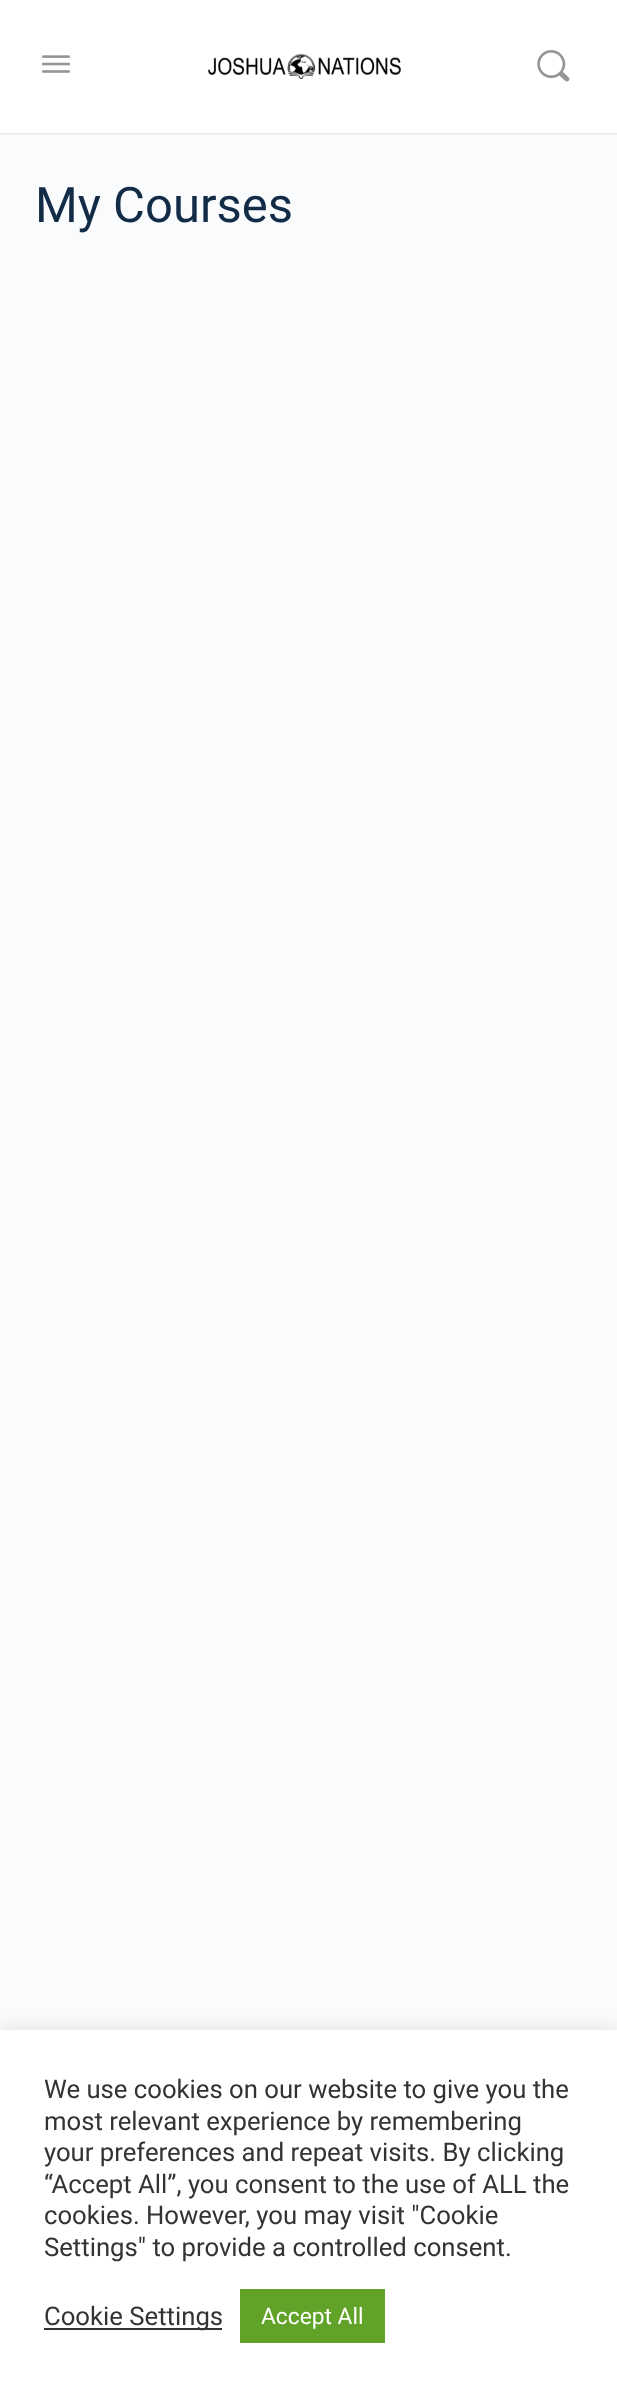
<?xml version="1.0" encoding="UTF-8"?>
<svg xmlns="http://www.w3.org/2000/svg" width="617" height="2395">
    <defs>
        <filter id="blur1" x="-50%" y="-200%" width="200%" height="500%"><feGaussianBlur stdDeviation="1"/></filter>
        <filter id="blur2" x="-50%" y="-200%" width="200%" height="500%"><feGaussianBlur stdDeviation="9"/></filter>
    </defs>
    <rect width="100%" height="100%" fill="#FAFBFD"/>
    <rect x="0" y="0" width="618" height="133" fill="#41476C" fill-opacity="0.15" filter="url(#blur1)"/>
    <path d="M 0 133 V 135 H 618 V 2 V 133 Z" fill="#8B8D9D" fill-opacity="0.05"/>
    <rect x="0" y="0" width="617" height="133" fill="#FFFFFF"/>
    <image x="42" y="55" width="28" height="18" href="img_01.png"/>
    <image x="208" y="54" width="193" height="25" href="img_02.png"/>
    <image x="537" y="50" width="33" height="32" href="img_03.png"/>
    <text x="35" y="222" font-family="Roboto" font-size="49" fill="#122B46">My Courses</text>
    <rect x="0" y="2028" width="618" height="366" fill="#ACABAB" fill-opacity="0.3" filter="url(#blur2)"/>
    <rect x="0" y="2030" width="617" height="365" fill="#FFFFFF"/>
    <text font-family="Roboto" font-size="25.7" fill="#333333">
        <tspan x="44" y="2098">We use cookies on our website to give you the</tspan>
        <tspan x="44" y="2130">most relevant experience by remembering</tspan>
        <tspan x="44" y="2161">your preferences and repeat visits. By clicking</tspan>
        <tspan x="44" y="2193">“Accept All”, you consent to the use of ALL the</tspan>
        <tspan x="44" y="2224">cookies. However, you may visit "Cookie</tspan>
        <tspan x="44" y="2256">Settings" to provide a controlled consent.</tspan>
    </text>
    <rect x="44" y="2328" width="178" height="2" fill="#333333"/>
    <text x="44" y="2325" font-family="Roboto" font-size="25.7" fill="#333333">Cookie Settings</text>
    <rect x="240" y="2289" width="145" height="54" fill="#61A229"/>
    <text x="261" y="2324" font-family="Roboto" font-size="22.75" fill="#FFFFFF">Accept All</text>
</svg>
